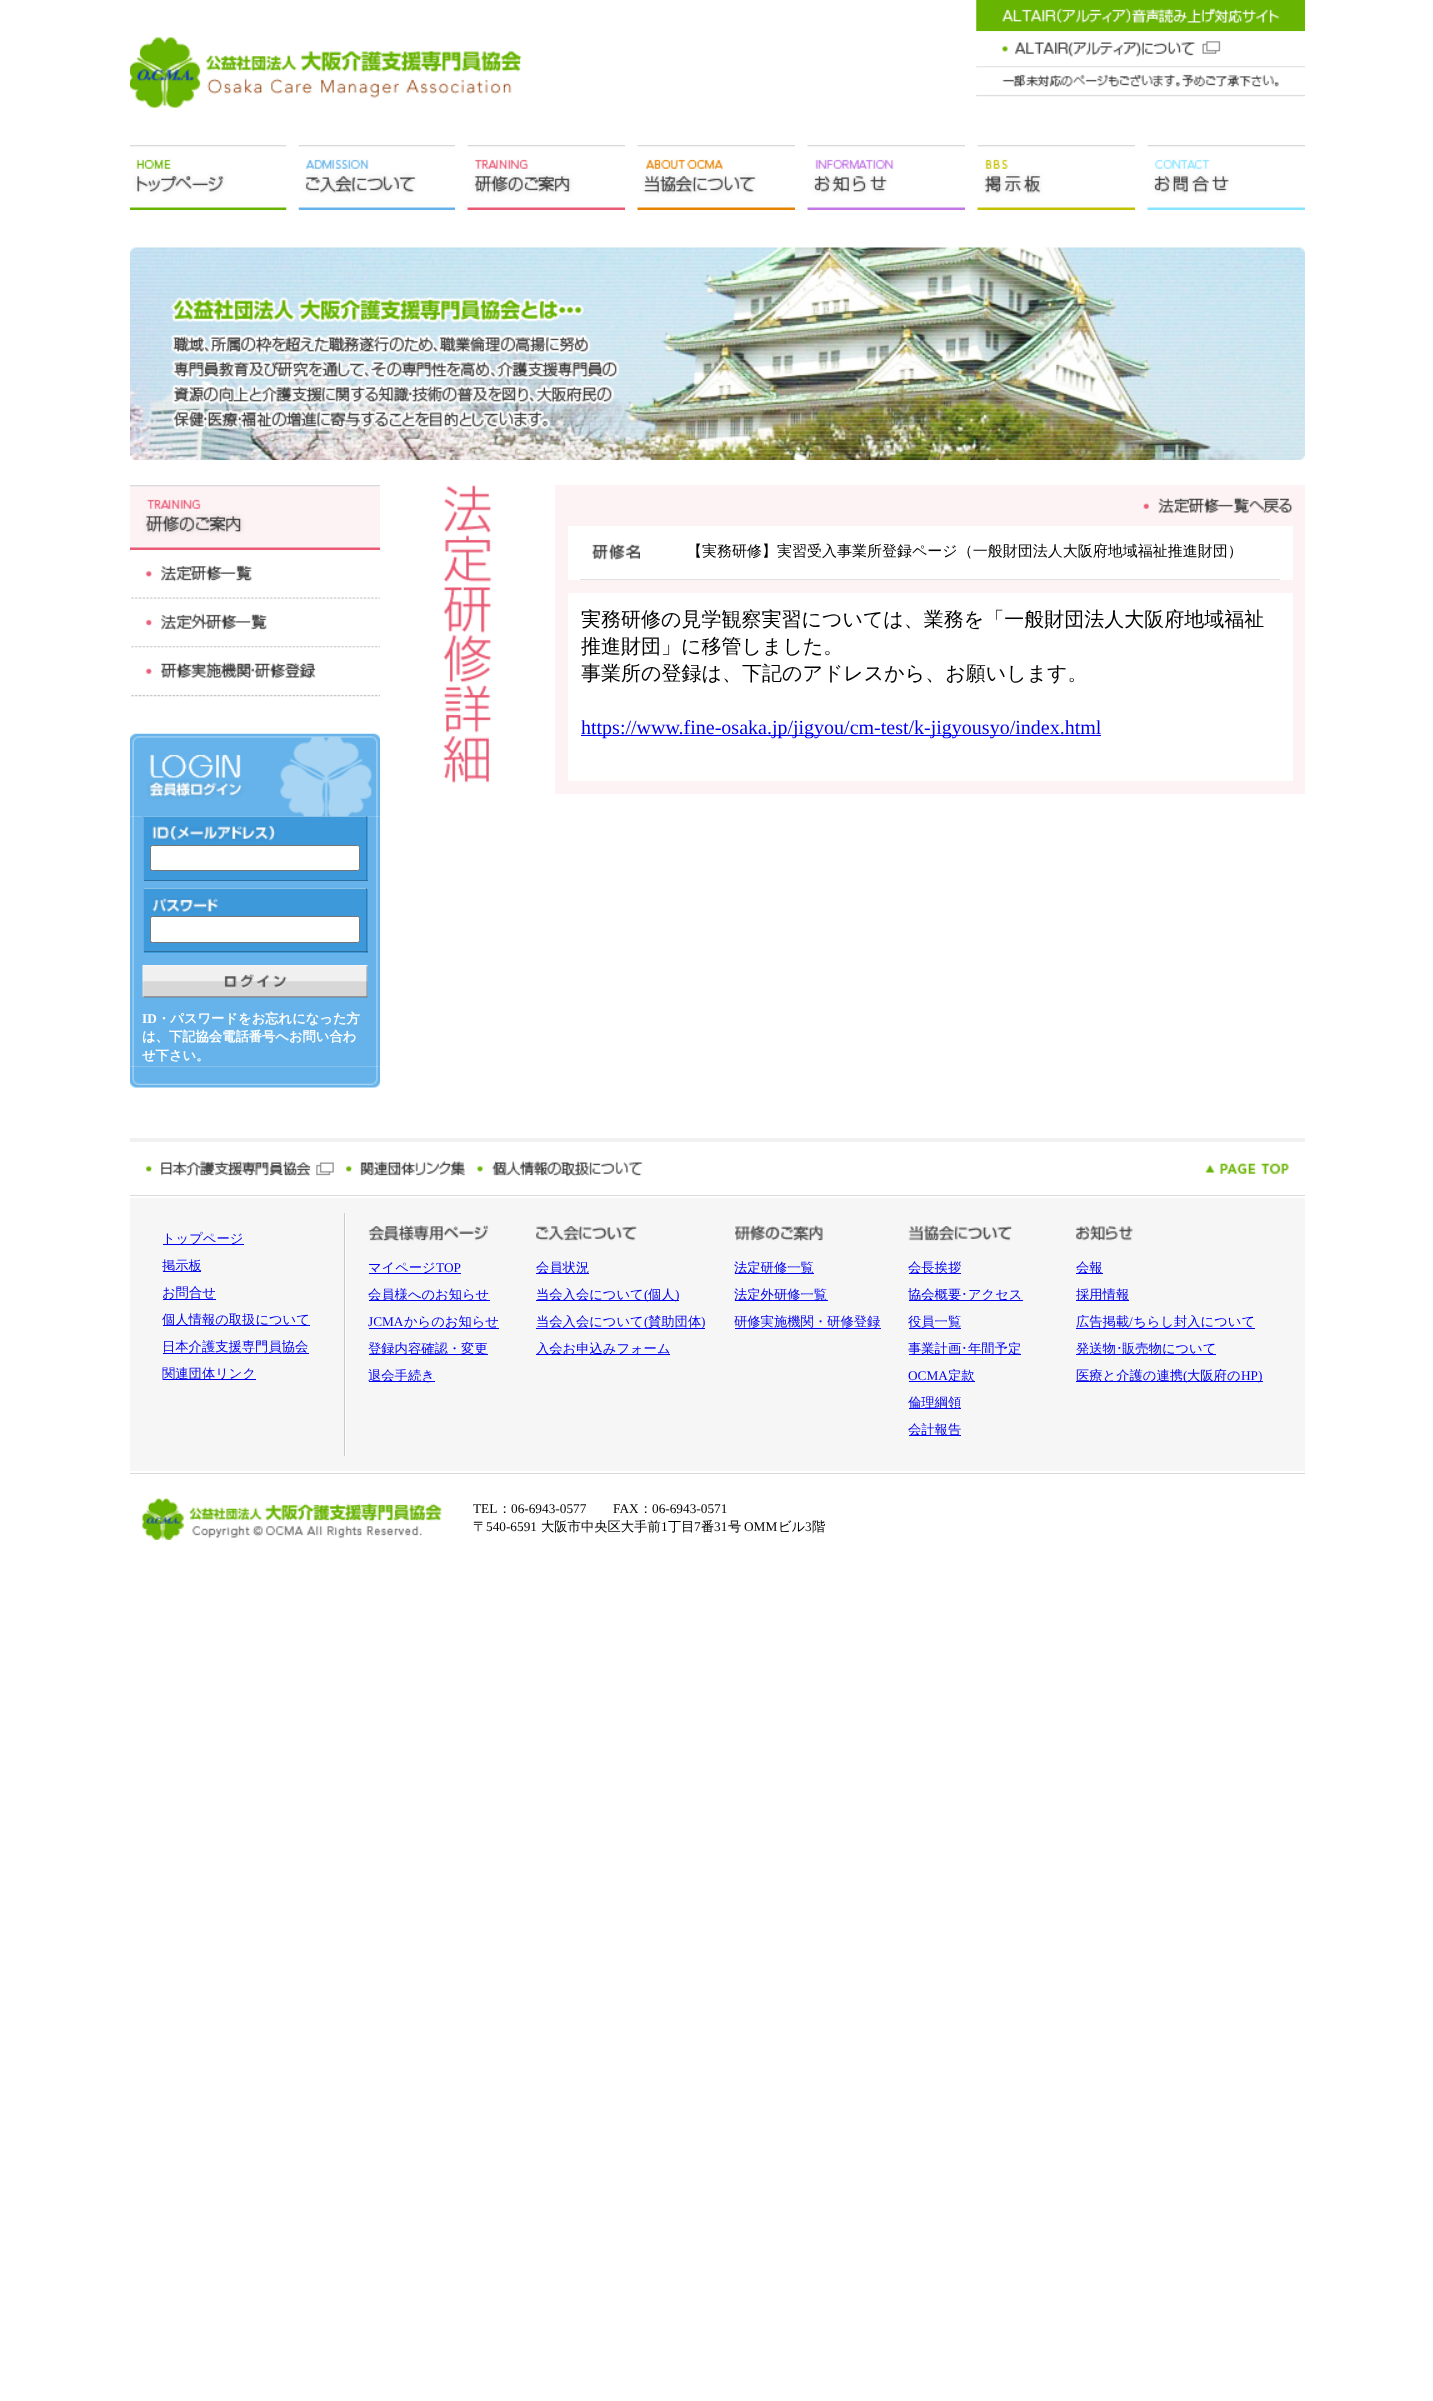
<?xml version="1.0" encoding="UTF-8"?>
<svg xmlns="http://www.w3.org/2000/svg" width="1433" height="2401">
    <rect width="100%" height="100%" fill="#FFFFFF"/>
    <image x="130" y="37" width="392" height="71" href="img_01.png"/>
    <image x="976" y="0" width="329" height="32" href="img_02.png"/>
    <image x="976" y="31" width="329" height="37" href="img_03.png"/>
    <image x="976" y="67" width="329" height="30" href="img_04.png"/>
    <image x="130" y="145" width="157" height="65" href="img_05.png"/>
    <image x="298" y="145" width="157" height="65" href="img_06.png"/>
    <image x="467" y="145" width="158" height="65" href="img_07.png"/>
    <image x="637" y="145" width="158" height="65" href="img_08.png"/>
    <image x="807" y="145" width="158" height="65" href="img_09.png"/>
    <image x="977" y="145" width="158" height="65" href="img_10.png"/>
    <image x="1147" y="145" width="158" height="65" href="img_11.png"/>
    <image x="130" y="247" width="1175" height="213" href="img_12.png"/>
    <image x="443" y="485" width="49" height="298" href="img_13.png"/>
    <rect x="555" y="485" width="750" height="309" fill="#FDF3F5"/>
    <image x="1143" y="497" width="150" height="17" href="img_14.png"/>
    <rect x="568" y="526" width="725" height="54" fill="#FFFFFF"/>
    <rect x="580" y="579" width="700" height="1" fill="#E1E1E1"/>
    <image x="592" y="543" width="48" height="17" href="img_15.png"/>
    <text x="687" y="556" font-family="WenQuanYi Zen Hei" font-size="15" font-weight="500" fill="#000000">【実務研修】実習受入事業所登録ページ（一般財団法人大阪府地域福祉推進財団）</text>
    <rect x="568" y="593" width="725" height="188" fill="#FFFFFF"/>
    <text font-family="WenQuanYi Zen Hei" font-size="20" font-weight="500" fill="#000000">
        <tspan x="581" y="626">実務研修の見学観察実習については、業務を「一般財団法人大阪府地域福祉</tspan>
        <tspan x="581" y="653">推進財団」に移管しました。</tspan>
        <tspan x="581" y="680">事業所の登録は、下記のアドレスから、お願いします。</tspan>
    </text>
    <rect x="581" y="735" width="520" height="1" fill="#0000EE"/>
    <text x="581" y="734" font-family="Liberation Serif" font-size="20" fill="#0000EE">https://www.fine-osaka.jp/jigyou/cm-test/k-jigyousyo/index.html</text>
    <image x="130" y="485" width="250" height="65" href="img_16.png"/>
    <image x="131" y="565" width="249" height="34" href="img_17.png"/>
    <image x="131" y="598" width="249" height="50" href="img_18.png"/>
    <image x="131" y="647" width="249" height="50" href="img_19.png"/>
    <image x="130" y="816" width="250" height="251" href="img_21.png"/>
    <rect x="143" y="816" width="225" height="1" fill="#8AC1E9"/>
    <rect x="144" y="817" width="224" height="63" fill="#3E99DA"/>
    <rect x="366" y="816" width="1" height="65" fill="#337EB4"/>
    <rect x="143" y="880" width="225" height="1" fill="#2D6E9D"/>
    <rect x="143" y="816" width="1" height="65" fill="#65ADE1"/>
    <image x="130" y="733" width="250" height="84" href="img_20.png"/>
    <image x="151" y="826" width="125" height="15" href="img_22.png"/>
    <rect x="150.5" y="845.5" width="209" height="25" rx="2" fill="#FFFFFF" stroke="#767676"/>
    <rect x="144" y="889" width="224" height="64" fill="#3E99DA"/>
    <rect x="143" y="888" width="225" height="1" fill="#8AC1E9"/>
    <rect x="366" y="888" width="1" height="65" fill="#337EB4"/>
    <rect x="143" y="951" width="225" height="1" fill="#2D6E9D"/>
    <rect x="143" y="888" width="1" height="65" fill="#65ADE1"/>
    <image x="152" y="898" width="66" height="15" href="img_23.png"/>
    <rect x="150.5" y="916.5" width="209" height="26" rx="2" fill="#FFFFFF" stroke="#767676"/>
    <image x="142" y="965" width="226" height="33" href="img_24.png"/>
    <text x="142" y="1023" font-family="Liberation Serif" font-size="13.3" font-weight="700" fill="#FFFFFF">ID</text>
    <text x="157" y="1023" font-family="WenQuanYi Zen Hei" font-size="13.3" font-weight="700" fill="#FFFFFF">・パスワードをお忘れになった方</text>
    <text font-family="WenQuanYi Zen Hei" font-size="13.3" font-weight="700" fill="#FFFFFF">
        <tspan x="142" y="1041">は、下記協会電話番号へお問い合わ</tspan>
        <tspan x="142" y="1060">せ下さい。</tspan>
    </text>
    <image x="130" y="1066" width="250" height="22" href="img_25.png"/>
    <rect x="130" y="1138" width="1175" height="4" fill="#F1F1F1"/>
    <rect x="130" y="1195" width="1175" height="1" fill="#DADADA"/>
    <image x="146" y="1161" width="188" height="16" href="img_26.png"/>
    <image x="346" y="1161" width="119" height="15" href="img_27.png"/>
    <image x="477" y="1161" width="166" height="16" href="img_28.png"/>
    <image x="1205" y="1163" width="84" height="11" href="img_29.png"/>
    <rect x="130" y="1198" width="1175" height="273" fill="#F6F6F6"/>
    <rect x="344" y="1213" width="1" height="243" fill="#CACACA"/>
    <rect x="163" y="1244" width="81" height="1" fill="#0000EE"/>
    <text x="162" y="1243" font-family="WenQuanYi Zen Hei" font-size="13.3" font-weight="500" fill="#0000EE">トップページ</text>
    <rect x="163" y="1271" width="38" height="1" fill="#0000EE"/>
    <text x="162" y="1270" font-family="WenQuanYi Zen Hei" font-size="13.3" font-weight="500" fill="#0000EE">掲示板</text>
    <text x="162" y="1297" font-family="WenQuanYi Zen Hei" font-size="13.3" font-weight="500" fill="#0000EE">お問合せ</text>
    <rect x="163" y="1299" width="53" height="1" fill="#0000EE"/>
    <rect x="163" y="1325" width="147" height="1" fill="#0000EE"/>
    <text x="162" y="1324" font-family="WenQuanYi Zen Hei" font-size="13.3" font-weight="500" fill="#0000EE">個人情報の取扱について</text>
    <rect x="163" y="1353" width="146" height="1" fill="#0000EE"/>
    <text x="162" y="1351" font-family="WenQuanYi Zen Hei" font-size="13.3" font-weight="500" fill="#0000EE">日本介護支援専門員協会</text>
    <rect x="163" y="1379" width="93" height="1" fill="#0000EE"/>
    <text x="162" y="1378" font-family="WenQuanYi Zen Hei" font-size="13.3" font-weight="500" fill="#0000EE">関連団体リンク</text>
    <rect x="345" y="1213" width="1" height="243" fill="#FFFFFF"/>
    <image x="368" y="1225" width="121" height="17" href="img_30.png"/>
    <rect x="369" y="1273" width="92" height="1" fill="#0000EE"/>
    <text x="368" y="1272" font-family="WenQuanYi Zen Hei" font-size="13.3" font-weight="500" fill="#0000EE">マイページ</text>
    <text x="436" y="1272" font-family="Liberation Serif" font-size="13.3" fill="#0000EE">TOP</text>
    <rect x="369" y="1300" width="121" height="1" fill="#0000EE"/>
    <text x="368" y="1299" font-family="WenQuanYi Zen Hei" font-size="13.3" font-weight="500" fill="#0000EE">会員様へのお知らせ</text>
    <text x="368" y="1326" font-family="Liberation Serif" font-size="13.3" fill="#0000EE">JCMA</text>
    <rect x="369" y="1328" width="130" height="1" fill="#0000EE"/>
    <text x="404" y="1326" font-family="WenQuanYi Zen Hei" font-size="13.3" font-weight="500" fill="#0000EE">からのお知らせ</text>
    <rect x="369" y="1354" width="119" height="1" fill="#0000EE"/>
    <text x="368" y="1353" font-family="WenQuanYi Zen Hei" font-size="13.3" font-weight="500" fill="#0000EE">登録内容確認・変更</text>
    <rect x="369" y="1381" width="66" height="1" fill="#0000EE"/>
    <text x="368" y="1380" font-family="WenQuanYi Zen Hei" font-size="13.3" font-weight="500" fill="#0000EE">退会手続き</text>
    <image x="536" y="1226" width="101" height="15" href="img_31.png"/>
    <rect x="536" y="1273" width="53" height="1" fill="#0000EE"/>
    <text x="536" y="1272" font-family="WenQuanYi Zen Hei" font-size="13.3" font-weight="500" fill="#0000EE">会員状況</text>
    <rect x="536" y="1300" width="143" height="1" fill="#0000EE"/>
    <text x="536" y="1299" font-family="WenQuanYi Zen Hei" font-size="13.3" font-weight="500" fill="#0000EE">当会入会について</text>
    <text x="644" y="1299" font-family="Liberation Serif" font-size="13.3" fill="#0000EE">(</text>
    <text x="648" y="1299" font-family="WenQuanYi Zen Hei" font-size="13.3" font-weight="500" fill="#0000EE">個人</text>
    <text x="675" y="1299" font-family="Liberation Serif" font-size="13.3" fill="#0000EE">)</text>
    <text x="536" y="1326" font-family="WenQuanYi Zen Hei" font-size="13.3" font-weight="500" fill="#0000EE">当会入会について</text>
    <rect x="536" y="1328" width="169" height="1" fill="#0000EE"/>
    <text x="644" y="1326" font-family="Liberation Serif" font-size="13.3" fill="#0000EE">(</text>
    <text x="648" y="1326" font-family="WenQuanYi Zen Hei" font-size="13.3" font-weight="500" fill="#0000EE">賛助団体</text>
    <text x="701" y="1326" font-family="Liberation Serif" font-size="13.3" fill="#0000EE">)</text>
    <rect x="536" y="1354" width="134" height="1" fill="#0000EE"/>
    <text x="536" y="1353" font-family="WenQuanYi Zen Hei" font-size="13.3" font-weight="500" fill="#0000EE">入会お申込みフォーム</text>
    <image x="735" y="1225" width="88" height="17" href="img_32.png"/>
    <rect x="735" y="1273" width="79" height="1" fill="#0000EE"/>
    <text x="734" y="1272" font-family="WenQuanYi Zen Hei" font-size="13.3" font-weight="500" fill="#0000EE">法定研修一覧</text>
    <rect x="735" y="1300" width="93" height="1" fill="#0000EE"/>
    <text x="734" y="1299" font-family="WenQuanYi Zen Hei" font-size="13.3" font-weight="500" fill="#0000EE">法定外研修一覧</text>
    <rect x="735" y="1328" width="146" height="1" fill="#0000EE"/>
    <text x="734" y="1326" font-family="WenQuanYi Zen Hei" font-size="13.3" font-weight="500" fill="#0000EE">研修実施機関・研修登録</text>
    <image x="908" y="1225" width="104" height="16" href="img_33.png"/>
    <rect x="909" y="1273" width="52" height="1" fill="#0000EE"/>
    <text x="908" y="1272" font-family="WenQuanYi Zen Hei" font-size="13.3" font-weight="500" fill="#0000EE">会長挨拶</text>
    <rect x="909" y="1300" width="114" height="1" fill="#0000EE"/>
    <text x="908" y="1299" font-family="WenQuanYi Zen Hei" font-size="13.3" font-weight="500" fill="#0000EE">協会概要</text>
    <text x="961" y="1299" font-family="IPAGothic" font-size="13.3" fill="#0000EE">･</text>
    <text x="968" y="1299" font-family="WenQuanYi Zen Hei" font-size="13.3" font-weight="500" fill="#0000EE">アクセス</text>
    <rect x="909" y="1328" width="52" height="1" fill="#0000EE"/>
    <text x="908" y="1326" font-family="WenQuanYi Zen Hei" font-size="13.3" font-weight="500" fill="#0000EE">役員一覧</text>
    <rect x="909" y="1354" width="112" height="1" fill="#0000EE"/>
    <text x="908" y="1353" font-family="WenQuanYi Zen Hei" font-size="13.3" font-weight="500" fill="#0000EE">事業計画</text>
    <text x="961" y="1353" font-family="IPAGothic" font-size="13.3" fill="#0000EE">･</text>
    <text x="968" y="1353" font-family="WenQuanYi Zen Hei" font-size="13.3" font-weight="500" fill="#0000EE">年間予定</text>
    <text x="908" y="1380" font-family="Liberation Serif" font-size="13.3" fill="#0000EE">OCMA</text>
    <rect x="909" y="1381" width="66" height="1" fill="#0000EE"/>
    <text x="948" y="1380" font-family="WenQuanYi Zen Hei" font-size="13.3" font-weight="500" fill="#0000EE">定款</text>
    <rect x="909" y="1408" width="52" height="1" fill="#0000EE"/>
    <text x="908" y="1407" font-family="WenQuanYi Zen Hei" font-size="13.3" font-weight="500" fill="#0000EE">倫理綱領</text>
    <rect x="909" y="1435" width="52" height="1" fill="#0000EE"/>
    <text x="908" y="1434" font-family="WenQuanYi Zen Hei" font-size="13.3" font-weight="500" fill="#0000EE">会計報告</text>
    <image x="1076" y="1225" width="57" height="16" href="img_34.png"/>
    <rect x="1076" y="1273" width="27" height="1" fill="#0000EE"/>
    <text x="1076" y="1272" font-family="WenQuanYi Zen Hei" font-size="13.3" font-weight="500" fill="#0000EE">会報</text>
    <rect x="1076" y="1300" width="53" height="1" fill="#0000EE"/>
    <text x="1076" y="1299" font-family="WenQuanYi Zen Hei" font-size="13.3" font-weight="500" fill="#0000EE">採用情報</text>
    <text x="1076" y="1326" font-family="WenQuanYi Zen Hei" font-size="13.3" font-weight="500" fill="#0000EE">広告掲載 ちらし封入について</text>
    <text x="1129" y="1326" font-family="Liberation Serif" font-size="13.3" fill="#0000EE">/</text>
    <rect x="1076" y="1328" width="179" height="1" fill="#0000EE"/>
    <rect x="1076" y="1354" width="140" height="1" fill="#0000EE"/>
    <text x="1076" y="1353" font-family="WenQuanYi Zen Hei" font-size="13.3" font-weight="500" fill="#0000EE">発送物</text>
    <text x="1116" y="1353" font-family="IPAGothic" font-size="13.3" fill="#0000EE">･</text>
    <text x="1122" y="1353" font-family="WenQuanYi Zen Hei" font-size="13.3" font-weight="500" fill="#0000EE">販売物について</text>
    <rect x="1076" y="1381" width="187" height="1" fill="#0000EE"/>
    <text x="1076" y="1380" font-family="WenQuanYi Zen Hei" font-size="13.3" font-weight="500" fill="#0000EE">医療と介護の連携</text>
    <text x="1183" y="1380" font-family="Liberation Serif" font-size="13.3" fill="#0000EE">(</text>
    <text x="1187" y="1380" font-family="WenQuanYi Zen Hei" font-size="13.3" font-weight="500" fill="#0000EE">大阪府の</text>
    <text x="1241" y="1380" font-family="Liberation Serif" font-size="13.3" fill="#0000EE">HP)</text>
    <rect x="130" y="1473" width="1175" height="1" fill="#DADADA"/>
    <image x="142" y="1498" width="300" height="42" href="img_35.png"/>
    <text x="473" y="1513" font-family="Liberation Serif" font-size="13.3" fill="#000000">TEL</text>
    <text x="498" y="1513" font-family="WenQuanYi Zen Hei" font-size="13.3" font-weight="500" fill="#000000">：</text>
    <text x="511" y="1513" font-family="Liberation Serif" font-size="13.3" fill="#000000">06-6943-0577</text>
    <text x="613" y="1513" font-family="Liberation Serif" font-size="13.3" fill="#000000">FAX</text>
    <text x="639" y="1513" font-family="WenQuanYi Zen Hei" font-size="13.3" font-weight="500" fill="#000000">：</text>
    <text x="652" y="1513" font-family="Liberation Serif" font-size="13.3" fill="#000000">06-6943-0571</text>
    <text x="473" y="1531" font-family="WenQuanYi Zen Hei" font-size="13.3" font-weight="500" fill="#000000">〒</text>
    <text x="486" y="1531" font-family="Liberation Serif" font-size="13.3" fill="#000000">540-6591</text>
    <text x="541" y="1531" font-family="WenQuanYi Zen Hei" font-size="13.3" font-weight="500" fill="#000000">大阪市中央区大手前</text>
    <text x="661" y="1531" font-family="Liberation Serif" font-size="13.3" fill="#000000">1</text>
    <text x="668" y="1531" font-family="WenQuanYi Zen Hei" font-size="13.3" font-weight="500" fill="#000000">丁目</text>
    <text x="694" y="1531" font-family="Liberation Serif" font-size="13.3" fill="#000000">7</text>
    <text x="701" y="1531" font-family="WenQuanYi Zen Hei" font-size="13.3" font-weight="500" fill="#000000">番</text>
    <text x="714" y="1531" font-family="Liberation Serif" font-size="13.3" fill="#000000">31</text>
    <text x="728" y="1531" font-family="WenQuanYi Zen Hei" font-size="13.3" font-weight="500" fill="#000000">号</text>
    <text x="744" y="1531" font-family="Liberation Serif" font-size="13.3" fill="#000000">OMM</text>
    <text x="778" y="1531" font-family="WenQuanYi Zen Hei" font-size="13.3" font-weight="500" fill="#000000">ビル</text>
    <text x="805" y="1531" font-family="Liberation Serif" font-size="13.3" fill="#000000">3</text>
    <text x="812" y="1531" font-family="WenQuanYi Zen Hei" font-size="13.3" font-weight="500" fill="#000000">階</text>
</svg>
